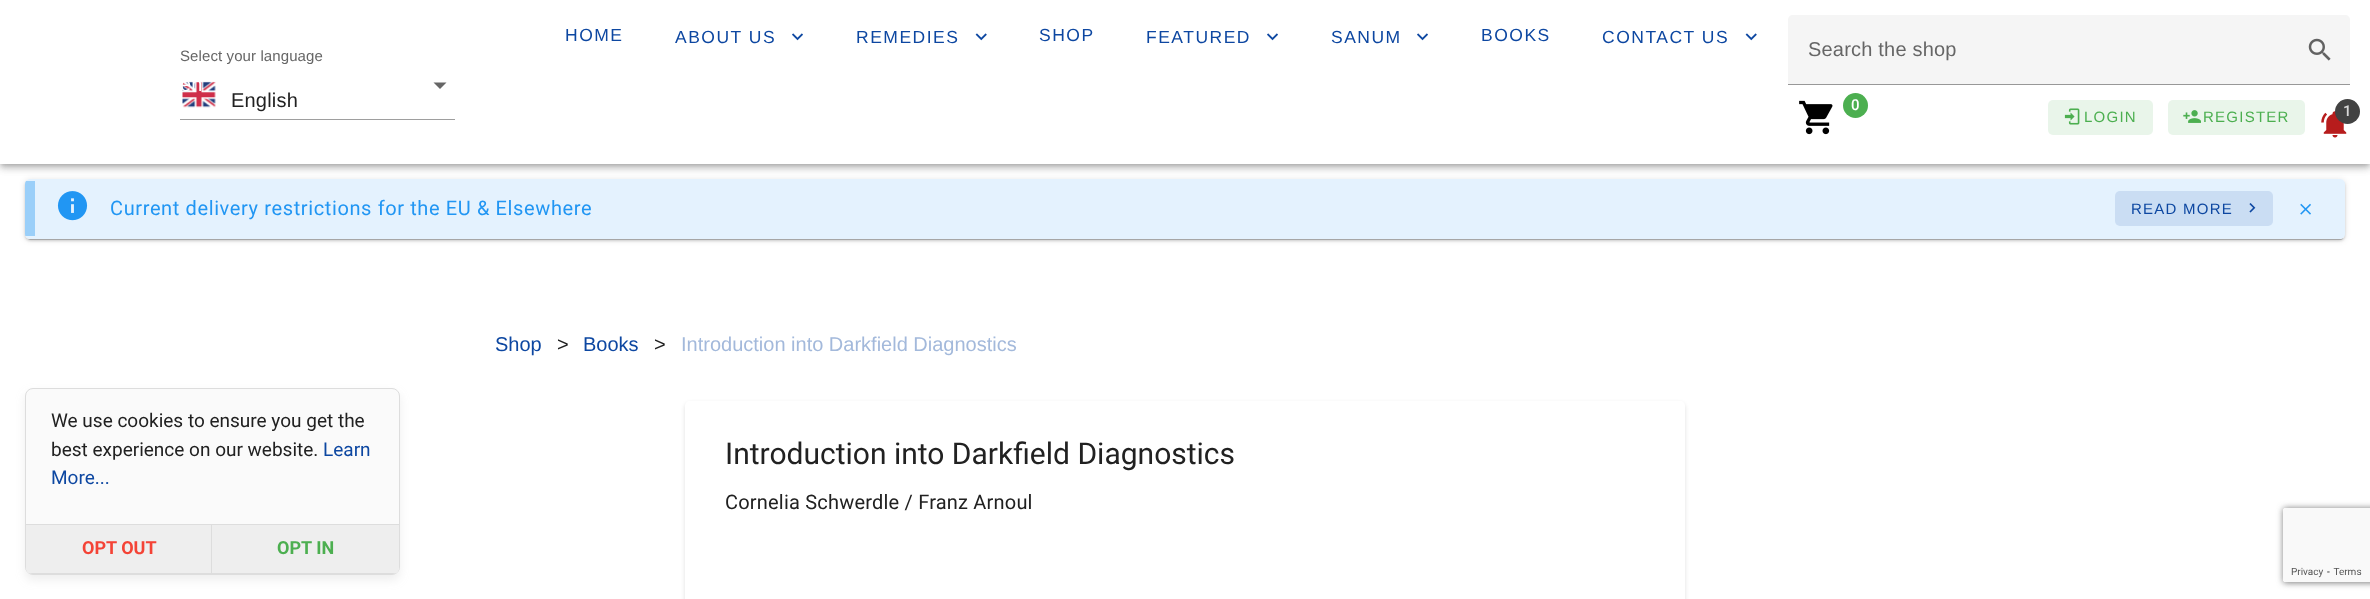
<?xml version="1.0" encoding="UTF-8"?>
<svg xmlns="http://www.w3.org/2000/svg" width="2370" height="599">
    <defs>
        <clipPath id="clip1"><path d="M 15 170 H 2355 V 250 H 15 Z M 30 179 H 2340 C 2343 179 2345 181 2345 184 V 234 C 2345 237 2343 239 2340 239 H 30 C 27 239 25 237 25 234 V 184 C 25 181 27 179 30 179 Z" clip-rule="evenodd"/></clipPath>
        <filter id="blur1" x="-50%" y="-200%" width="200%" height="500%"><feGaussianBlur stdDeviation="3"/></filter>
        <clipPath id="clip2"><path d="M 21 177 H 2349 V 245 H 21 Z M 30 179 H 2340 C 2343 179 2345 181 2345 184 V 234 C 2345 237 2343 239 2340 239 H 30 C 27 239 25 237 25 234 V 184 C 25 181 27 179 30 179 Z" clip-rule="evenodd"/></clipPath>
        <filter id="blur2" x="-50%" y="-200%" width="200%" height="500%"><feGaussianBlur stdDeviation="1"/></filter>
        <clipPath id="clip3"><path d="M 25 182 H 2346 V 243 H 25 Z M 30 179 H 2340 C 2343 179 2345 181 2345 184 V 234 C 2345 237 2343 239 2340 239 H 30 C 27 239 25 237 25 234 V 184 C 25 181 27 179 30 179 Z" clip-rule="evenodd"/></clipPath>
        <filter id="blur3" x="-50%" y="-200%" width="200%" height="500%"><feGaussianBlur stdDeviation="0.5"/></filter>
        <clipPath id="clip4"><rect x="25" y="179" width="2320" height="60" rx="5"/></clipPath>
        <filter id="blur4" x="-50%" y="-200%" width="200%" height="500%"><feGaussianBlur stdDeviation="6"/></filter>
        <filter id="blur5" x="-50%" y="-200%" width="200%" height="500%"><feGaussianBlur stdDeviation="2.5"/></filter>
        <filter id="blur6" x="-50%" y="-200%" width="200%" height="500%"><feGaussianBlur stdDeviation="2"/></filter>
        <filter id="blur7" x="-50%" y="-200%" width="200%" height="500%"><feGaussianBlur stdDeviation="5"/></filter>
        <clipPath id="clip5"><rect x="26" y="389" width="373" height="185" rx="6"/></clipPath>
    </defs>
    <rect width="100%" height="100%" fill="#FFFFFF"/>
    <g clip-path="url(#clip1)">
        <rect x="25" y="180" width="2320" height="60" rx="5" fill="#000000" fill-opacity="0.12" filter="url(#blur1)"/>
    </g>
    <g clip-path="url(#clip2)">
        <rect x="25" y="181" width="2320" height="60" rx="5" fill="#000000" fill-opacity="0.14" filter="url(#blur2)"/>
    </g>
    <g clip-path="url(#clip3)">
        <rect x="28" y="185" width="2315" height="55" rx="2.5" fill="#000000" fill-opacity="0.2" filter="url(#blur3)"/>
    </g>
    <rect x="25" y="179" width="2320" height="60" rx="5" fill="#2196F3" fill-opacity="0.12"/>
    <g clip-path="url(#clip4)">
        <rect x="25" y="181" width="10" height="55" fill="#2196F3" fill-opacity="0.38"/>
    </g>
    <rect x="0" y="1" width="2370" height="164" fill="#000000" fill-opacity="0.12" filter="url(#blur4)"/>
    <rect x="0" y="5" width="2370" height="164" fill="#000000" fill-opacity="0.14" filter="url(#blur1)"/>
    <rect x="1" y="4" width="2368" height="161" fill="#000000" fill-opacity="0.2" filter="url(#blur5)"/>
    <rect x="0" y="0" width="2370" height="164" fill="#FFFFFF"/>
    <text x="565" y="41" font-family="Liberation Sans" font-size="17.5" letter-spacing="1.5" fill="#0D47A1">HOME</text>
    <text x="675" y="43" font-family="Liberation Sans" font-size="17.5" letter-spacing="1.5" fill="#0D47A1">ABOUT US</text>
    <image x="792" y="33" width="11" height="8" href="img_01.png"/>
    <text x="856" y="43" font-family="Liberation Sans" font-size="17.5" letter-spacing="1.5" fill="#0D47A1">REMEDIES</text>
    <image x="975" y="33" width="12" height="8" href="img_02.png"/>
    <text x="1039" y="41" font-family="Liberation Sans" font-size="17.5" letter-spacing="1.5" fill="#0D47A1">SHOP</text>
    <text x="1146" y="43" font-family="Liberation Sans" font-size="17.5" letter-spacing="1.5" fill="#0D47A1">FEATURED</text>
    <image x="1267" y="33" width="11" height="8" href="img_01.png"/>
    <text x="1331" y="43" font-family="Liberation Sans" font-size="17.5" letter-spacing="1.5" fill="#0D47A1">SANUM</text>
    <image x="1417" y="33" width="11" height="8" href="img_01.png"/>
    <text x="1481" y="41" font-family="Liberation Sans" font-size="17.5" letter-spacing="1.5" fill="#0D47A1">BOOKS</text>
    <text x="1602" y="43" font-family="Liberation Sans" font-size="17.5" letter-spacing="1.5" fill="#0D47A1">CONTACT US</text>
    <image x="1745" y="33" width="12" height="8" href="img_02.png"/>
    <text x="180" y="61" font-family="Liberation Sans" font-size="15" letter-spacing="0.1" fill="#666666">Select your language</text>
    <rect x="180" y="119" width="275" height="1" fill="#9E9E9E"/>
    <image x="182" y="81" width="34" height="27" href="img_03.png"/>
    <text x="180" y="91" font-family="Liberation Sans" font-size="20" letter-spacing="0.2" fill="#FFFFFF">en</text>
    <text x="231" y="107" font-family="Liberation Sans" font-size="20" letter-spacing="0.2" fill="#212121">English</text>
    <path d="M 433.5 82.5 L 440 89 L 446.5 82.5 Z" fill="#666666"/>
    <path d="M 1793 15 H 2345 C 2348 15 2350 17 2350 20 V 85 H 1788 V 20 C 1788 17 1790 15 1793 15 Z" fill="#F5F5F5"/>
    <text x="1808" y="56" font-family="Liberation Sans" font-size="20" letter-spacing="0.2" fill="#666666">Search the shop</text>
    <image x="2308" y="38" width="23" height="23" href="img_04.png"/>
    <rect x="1788" y="84" width="562" height="1" fill="#989898"/>
    <image x="1799" y="100" width="34" height="35" href="img_05.png"/>
    <circle cx="1855.5" cy="105.5" r="12.5" fill="#4CAF50"/>
    <text x="1851" y="110" font-family="Roboto" font-size="15" font-weight="500" fill="#FFFFFF">0</text>
    <rect x="2048" y="100" width="105" height="35" rx="5" fill="#4CAF50" fill-opacity="0.12"/>
    <image x="2064" y="108" width="16" height="17" href="img_06.png"/>
    <text x="2084" y="122" font-family="Liberation Sans" font-size="15" letter-spacing="1.25" fill="#4CAF50">LOGIN</text>
    <rect x="2168" y="100" width="137" height="35" rx="5" fill="#4CAF50" fill-opacity="0.12"/>
    <image x="2183" y="110" width="18" height="13" href="img_07.png"/>
    <text x="2203" y="122" font-family="Liberation Sans" font-size="15" letter-spacing="1.25" fill="#4CAF50">REGISTER</text>
    <image x="2321" y="111" width="26" height="27" href="img_08.png"/>
    <circle cx="2347.5" cy="111.5" r="12.5" fill="#424242"/>
    <text x="2343" y="116" font-family="Roboto" font-size="15" font-weight="500" fill="#D8D8D8">1</text>
    <image x="57" y="191" width="31" height="30" href="img_09.png"/>
    <text x="110" y="215" font-family="Roboto" font-size="20" letter-spacing="0.62" fill="#2196F3">Current delivery restrictions for the EU &amp; Elsewhere</text>
    <rect x="2115" y="191" width="158" height="35" rx="5" fill="#0D47A1" fill-opacity="0.12"/>
    <text x="2131" y="214" font-family="Liberation Sans" font-size="15" letter-spacing="1.25" fill="#0D47A1">READ MORE</text>
    <image x="2249" y="203" width="7" height="10" href="img_10.png"/>
    <image x="2300" y="203" width="11" height="12" href="img_11.png"/>
    <text x="495" y="351" font-family="Liberation Sans" font-size="20" fill="#0D47A1">Shop</text>
    <text x="557" y="351" font-family="Liberation Sans" font-size="20" fill="#212121">&gt;</text>
    <text x="583" y="351" font-family="Liberation Sans" font-size="20" fill="#0D47A1">Books</text>
    <text x="654" y="351" font-family="Liberation Sans" font-size="20" fill="#212121">&gt;</text>
    <text x="681" y="351" font-family="Liberation Sans" font-size="20" fill="#A3B9DB">Introduction into Darkfield Diagnostics</text>
    <rect x="685" y="403" width="1000" height="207" rx="5" fill="#000000" fill-opacity="0.12" filter="url(#blur6)"/>
    <path d="M 690 401 H 1680 C 1683 401 1685 403 1685 406 V 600 H 685 V 406 C 685 403 687 401 690 401 Z" fill="#FFFFFF"/>
    <text x="725" y="464" font-family="Roboto" font-size="30" fill="#212121">Introduction into Darkfield Diagnostics</text>
    <text x="725" y="509" font-family="Roboto" font-size="20" letter-spacing="0.2" fill="#212121">Cornelia Schwerdle / Franz Arnoul</text>
    <rect x="25" y="393" width="375" height="187" rx="8" fill="#C6C6C6" fill-opacity="0.3" filter="url(#blur7)"/>
    <rect x="25.5" y="388.5" width="374" height="186" rx="7.5" fill="#FAFAFA" stroke="#DDDDDD"/>
    <text font-family="Roboto" font-size="19" fill="#212121">
        <tspan x="51" y="427">We use cookies to ensure you get the</tspan>
        <tspan x="51" y="456">best experience on our website.</tspan>
    </text>
    <text x="323" y="456" font-family="Roboto" font-size="19" fill="#0D47A1">Learn</text>
    <text x="51" y="484" font-family="Roboto" font-size="19" fill="#0D47A1">More...</text>
    <path d="M 26 524 H 213 V 574 H 32 C 28.5 574 26 571.5 26 568 Z" fill="#EEEEEE"/>
    <rect x="26" y="524" width="187" height="1" fill="#DDDDDD"/>
    <rect x="211" y="524" width="1" height="50" fill="#DDDDDD"/>
    <g clip-path="url(#clip5)">
        <rect x="26" y="573" width="187" height="1" fill="#DDDDDD"/>
    </g>
    <text x="82" y="554" font-family="Roboto" font-size="18" font-weight="700" fill="#F44336">OPT OUT</text>
    <path d="M 213 524 H 399 V 568 C 399 571.5 396.5 574 393 574 H 213 Z" fill="#EEEEEE"/>
    <rect x="213" y="524" width="186" height="1" fill="#DDDDDD"/>
    <g clip-path="url(#clip5)">
        <rect x="213" y="573" width="186" height="1" fill="#DDDDDD"/>
    </g>
    <text x="277" y="554" font-family="Roboto" font-size="18" font-weight="700" fill="#4CAF50">OPT IN</text>
    <rect x="2283" y="508" width="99" height="75" rx="2.5" fill="#808080" filter="url(#blur1)"/>
    <image x="2283" y="508" width="87" height="74" href="img_12.png"/>
</svg>
